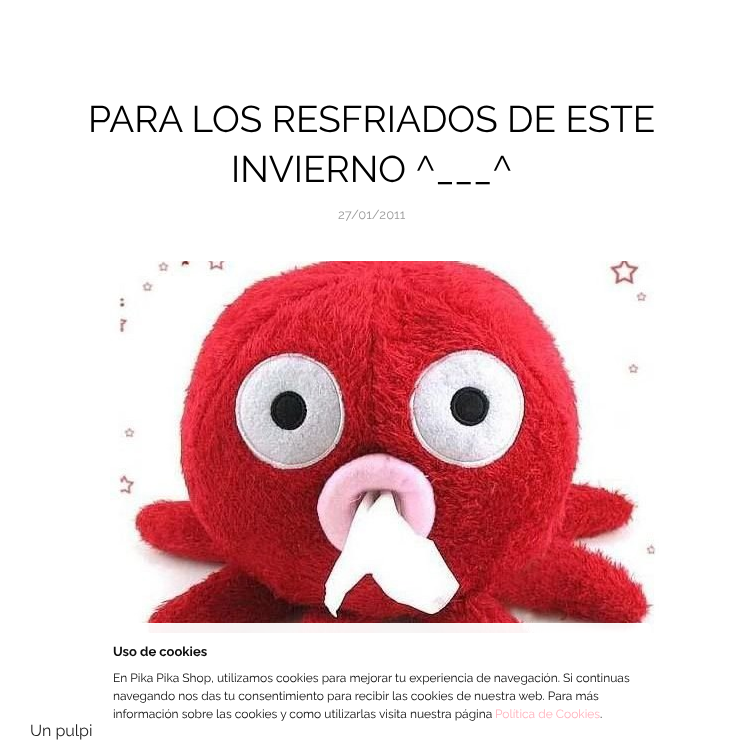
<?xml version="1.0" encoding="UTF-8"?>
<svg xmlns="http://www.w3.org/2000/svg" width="744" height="743">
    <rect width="100%" height="100%" fill="#FFFFFF"/>
    <text x="88" y="132" font-family="Raleway" font-size="37" fill="#000000">PARA LOS RESFRIADOS DE ESTE</text>
    <text x="231" y="182" font-family="Raleway" font-size="37" fill="#000000">INVIERNO ^___^</text>
    <text x="338" y="219" font-family="Raleway" font-size="13" fill="#9C9C9C">27/01/2011</text>
    <image x="110" y="261" width="549" height="372" href="img_01.png"/>
    <text x="30" y="736" font-family="Raleway" font-size="16" fill="#222222">Un pulpi</text>
    <path d="M 98 623 H 646 C 649 623 651 625 651 628 V 743 H 93 V 628 C 93 625 95 623 98 623 Z" fill="#FFFFFF" fill-opacity="0.95"/>
    <text x="113" y="656" font-family="Raleway" font-size="13" font-weight="700" fill="#0D0D0D">Uso de cookies</text>
    <text font-family="Raleway" font-size="12" fill="#0D0D0D">
        <tspan x="113" y="682">En Pika Pika Shop, utilizamos cookies para mejorar tu experiencia de navegación. Si continuas</tspan>
        <tspan x="113" y="700">navegando nos das tu consentimiento para recibir las cookies de nuestra web. Para más</tspan>
        <tspan x="113" y="718">información sobre las cookies y como utilizarlas visita nuestra página</tspan>
    </text>
    <text x="495" y="718" font-family="Raleway" font-size="12" fill="#FFB2BD">Política de Cookies</text>
    <text x="600" y="718" font-family="Raleway" font-size="12" fill="#0D0D0D">.</text>
</svg>
